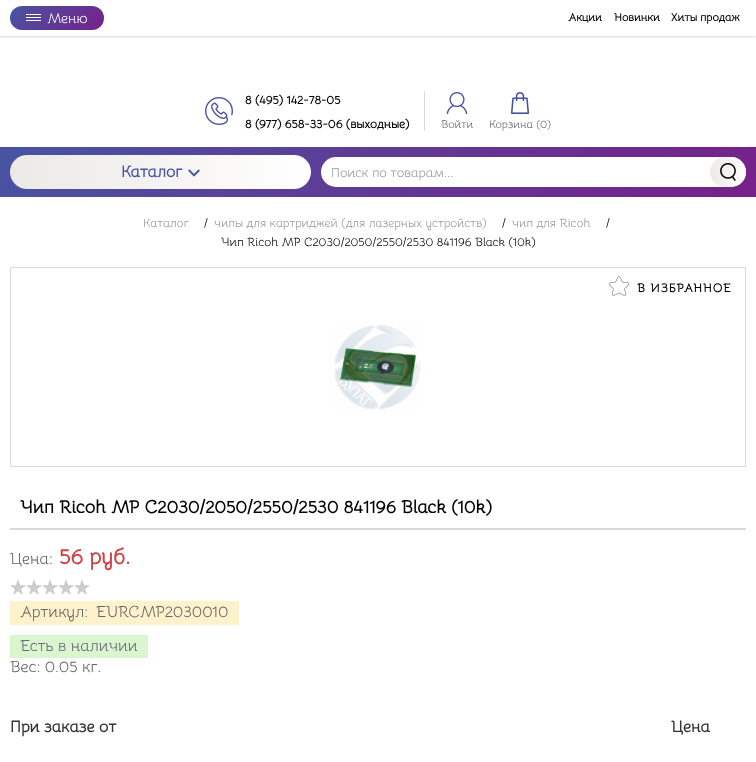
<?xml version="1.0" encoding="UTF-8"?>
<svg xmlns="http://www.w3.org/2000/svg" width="756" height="762">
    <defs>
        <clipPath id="clip1"><rect x="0" y="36" width="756" height="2"/></clipPath>
        <filter id="blur1" x="-50%" y="-200%" width="200%" height="500%"><feGaussianBlur stdDeviation="1"/></filter>
        <linearGradient id="g1" gradientUnits="userSpaceOnUse" x1="27" y1="-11" x2="87" y2="48"><stop offset="0" stop-color="#4854A2"/><stop offset="1" stop-color="#772088"/></linearGradient>
        <linearGradient id="g2" gradientUnits="userSpaceOnUse" x1="177" y1="-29" x2="580" y2="374"><stop offset="0" stop-color="#4854A2"/><stop offset="1" stop-color="#772088"/></linearGradient>
        <linearGradient id="g3" gradientUnits="userSpaceOnUse" x1="10" y1="172" x2="311" y2="172"><stop offset="0" stop-color="#ECE9E6"/><stop offset="1" stop-color="#FFFFFF"/></linearGradient>
        <linearGradient id="g4" gradientUnits="userSpaceOnUse" x1="710" y1="172" x2="746" y2="172"><stop offset="0" stop-color="#ECE9E6"/><stop offset="1" stop-color="#FFFFFF"/></linearGradient>
    </defs>
    <rect width="100%" height="100%" fill="#FFFFFF"/>
    <g clip-path="url(#clip1)">
        <rect x="0" y="1" width="756" height="36" fill="#000000" fill-opacity="0.16" filter="url(#blur1)"/>
    </g>
    <rect x="10" y="6" width="94" height="24" rx="12" fill="url(#g1)"/>
    <rect x="26" y="14" width="15" height="1" fill="#FFFFFF"/>
    <rect x="26" y="17" width="15" height="1" fill="#FFFFFF"/>
    <rect x="26" y="20" width="15" height="1" fill="#FFFFFF"/>
    <text x="47" y="23" font-family="Bellota" font-size="14" fill="#FFFFFF">Меню</text>
    <text x="568" y="21" font-family="Bellota" font-size="11" font-weight="700" fill="#000000">Акции</text>
    <text x="614" y="21" font-family="Bellota" font-size="11" font-weight="700" fill="#000000">Новинки</text>
    <text x="671" y="21" font-family="Bellota" font-size="11" font-weight="700" fill="#000000">Хиты продаж</text>
    <image x="205" y="97" width="28" height="28" href="img_01.png"/>
    <text x="245" y="104" font-family="Bellota" font-size="12" font-weight="700" fill="#000000">8 (495) 142-78-05</text>
    <text x="245" y="128" font-family="Bellota" font-size="12" font-weight="700" fill="#000000">8 (977) 658-33-06 (выходные)</text>
    <rect x="424" y="91" width="1" height="40" fill="#DADADA"/>
    <image x="446" y="92" width="22" height="22" href="img_02.png"/>
    <text x="441" y="128" font-family="Bellota" font-size="11" fill="#666666">Войти</text>
    <image x="510" y="92" width="20" height="22" href="img_03.png"/>
    <text x="489" y="128" font-family="Bellota" font-size="11" fill="#666666">Корзина (0</text>
    <text x="547" y="128" font-family="Bellota" font-size="11" fill="#666666">)</text>
    <rect x="0" y="147" width="756" height="50" fill="url(#g2)"/>
    <rect x="10" y="155" width="301" height="34" rx="17" fill="url(#g3)"/>
    <text x="121" y="177" font-family="Bellota" font-size="16" font-weight="700" fill="#4854A2">Каталог</text>
    <image x="188" y="169" width="12" height="8" href="img_04.png"/>
    <rect x="321" y="157" width="425" height="30" rx="15" fill="#FFFFFF"/>
    <text x="331" y="177" font-family="Bellota" font-size="13" fill="#999999">Поиск по товарам...</text>
    <rect x="710" y="157" width="36" height="30" rx="15" fill="url(#g4)"/>
    <image x="720" y="163" width="16" height="18" href="img_05.png"/>
    <text x="143" y="227" font-family="Bellota" font-size="12" fill="#999999">Каталог</text>
    <text x="204" y="227" font-family="Bellota" font-size="12" fill="#000000">/</text>
    <text x="214" y="227" font-family="Bellota" font-size="12" fill="#999999">чипы для картриджей (для лазерных устройств)</text>
    <text x="502" y="227" font-family="Bellota" font-size="12" fill="#000000">/</text>
    <text x="512" y="227" font-family="Bellota" font-size="12" fill="#999999">чип для Ricoh</text>
    <text x="606" y="227" font-family="Bellota" font-size="12" fill="#000000">/</text>
    <text x="221" y="246" font-family="Bellota" font-size="12" fill="#000000">Чип Ricoh MP C2030/2050/2550/2530 841196 Black (10k)</text>
    <rect x="10.5" y="267.5" width="735" height="199" fill="none" stroke="#DADADA"/>
    <image x="334" y="325" width="87" height="85" href="img_06.png"/>
    <image x="609" y="276" width="20" height="20" href="img_07.png"/>
    <text x="637" y="292" font-family="Bellota" font-size="12" font-weight="700" letter-spacing="1" fill="#000000">В ИЗБРАННОЕ</text>
    <rect x="10" y="528" width="736" height="2" fill="#DADADA"/>
    <text x="20" y="513" font-family="Bellota" font-size="18" font-weight="700" fill="#000000">Чип Ricoh MP C2030/2050/2550/2530 841196 Black (10k)</text>
    <text x="10" y="564" font-family="Bellota" font-size="16" fill="#666666">Цена:</text>
    <text x="59" y="564" font-family="Bellota" font-size="22" font-weight="700" fill="#CD4449">56 руб.</text>
    <image x="10" y="579" width="80" height="16" href="img_08.png"/>
    <rect x="10" y="601" width="229" height="24" fill="#FDF2CC"/>
    <text x="20" y="617" font-family="Bellota" font-size="16" fill="#666666">Артикул:</text>
    <text x="96" y="617" font-family="Bellota" font-size="16" fill="#666666">EURCMP2030010</text>
    <rect x="10" y="635" width="138" height="23" fill="#DBF5CE"/>
    <text x="20" y="651" font-family="Bellota" font-size="16" fill="#6A6A7F">Есть в наличии</text>
    <text x="10" y="672" font-family="Bellota" font-size="16" fill="#666666">Вес: 0.05 кг.</text>
    <text x="10" y="732" font-family="Bellota" font-size="16" font-weight="700" fill="#333333">При заказе от</text>
    <text x="671" y="732" font-family="Bellota" font-size="16" font-weight="700" fill="#333333">Цена</text>
</svg>
